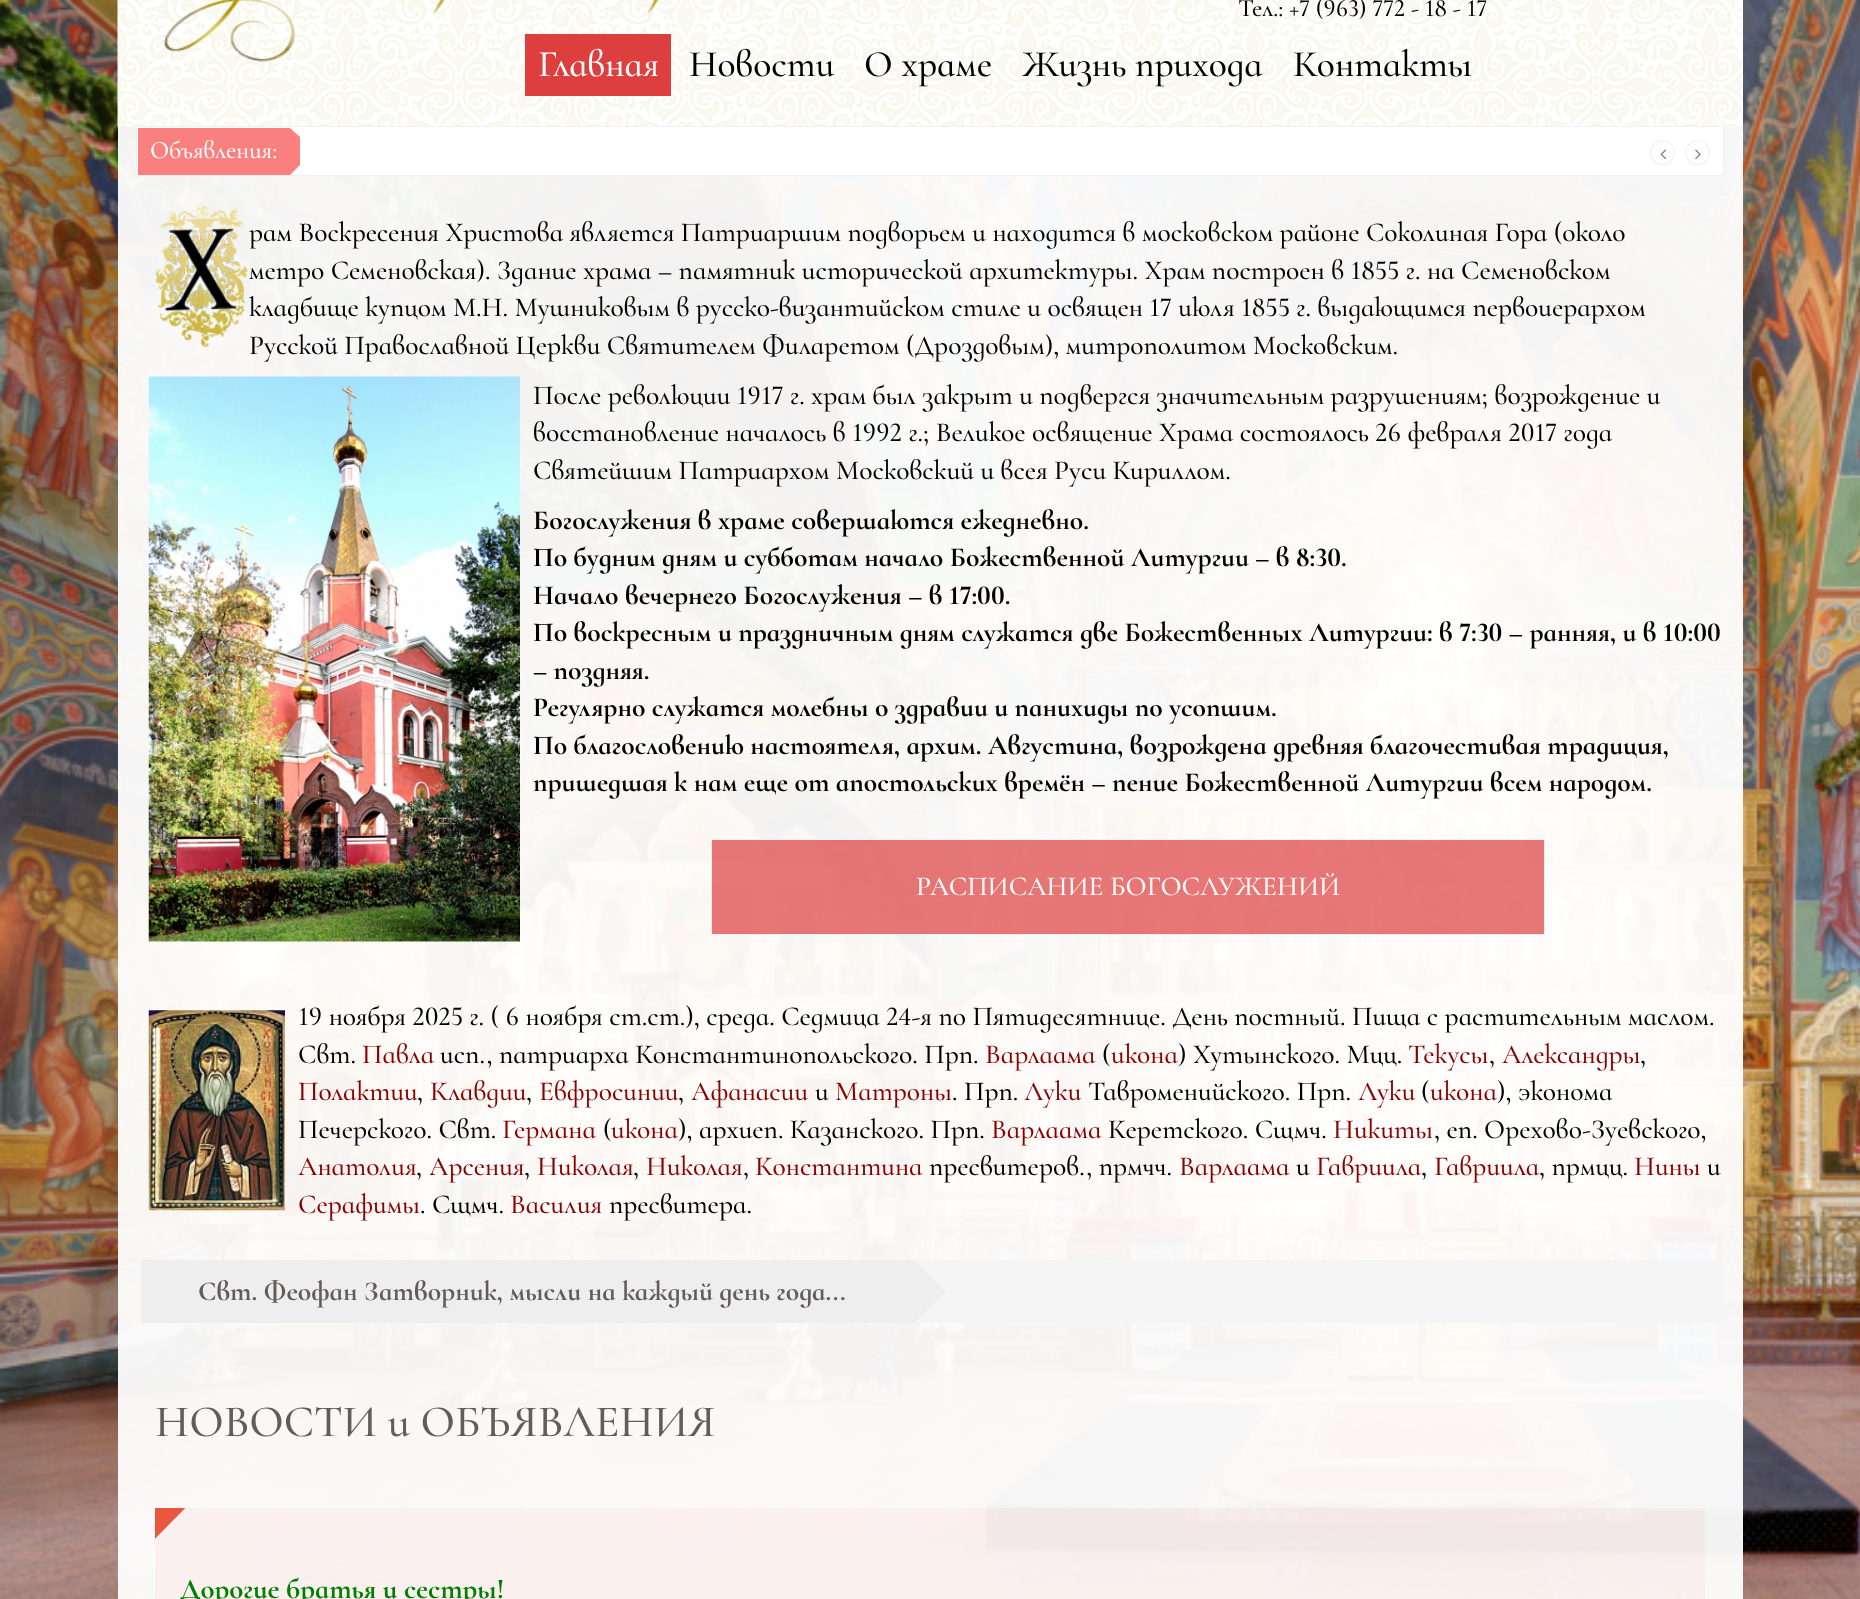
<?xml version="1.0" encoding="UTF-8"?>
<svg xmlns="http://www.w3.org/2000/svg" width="1860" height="1599">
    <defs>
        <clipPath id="clip1"><rect x="155" y="1508" width="1550" height="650"/></clipPath>
    </defs>
    <rect width="100%" height="100%" fill="#FFFFFF"/>
    <image x="0" y="0" width="1860" height="1599" href="img_01.png"/>
    <rect x="1742" y="0" width="1" height="126" fill="#FFFFFF"/>
    <image x="117" y="0" width="1626" height="127" href="img_02.png"/>
    <image x="163" y="0" width="496" height="62" href="img_03.png"/>
    <text x="1238" y="16" font-family="Cormorant Infant" font-size="25" font-weight="500" fill="#000000">Тел.: +7 (963) 772 - 18 - 17</text>
    <rect x="525" y="34" width="146" height="62" fill="#DD3E3E"/>
    <text x="538" y="76" font-family="Cormorant Infant" font-size="37.5" font-weight="500" fill="#FFFFFF">Главная</text>
    <text x="689" y="76" font-family="Cormorant Infant" font-size="37.5" font-weight="500" fill="#000000">Новости</text>
    <text x="864" y="76" font-family="Cormorant Infant" font-size="37.5" font-weight="500" fill="#000000">О храме</text>
    <text x="1022" y="76" font-family="Cormorant Infant" font-size="37.5" font-weight="500" fill="#000000">Жизнь прихода</text>
    <text x="1293" y="76" font-family="Cormorant Infant" font-size="37.5" font-weight="500" fill="#000000">Контакты</text>
    <rect x="118" y="126" width="1625" height="1473" fill="#FFFFFF" fill-opacity="0.95"/>
    <rect x="136.5" y="126.5" width="1587" height="49" fill="#FFFFFF" stroke="#F1F1F1"/>
    <rect x="138" y="128" width="152" height="47" fill="#FA7F7F"/>
    <text x="150" y="158" font-family="Cormorant Infant" font-size="25" font-weight="500" fill="#FFFFFF">Объявления:</text>
    <path d="M 290 175 V 128 L 300 137 V 165 Z" fill="#FA7F7F"/>
    <circle cx="1662.5" cy="152.5" r="12" fill="none" stroke="#EEEEEE"/>
    <image x="1660" y="149" width="6" height="11" href="img_04.png"/>
    <circle cx="1697.5" cy="152.5" r="12" fill="none" stroke="#EEEEEE"/>
    <image x="1695" y="149" width="6" height="11" href="img_05.png"/>
    <image x="155" y="202" width="93" height="146" href="img_06.png"/>
    <text font-family="Cormorant Infant" font-size="27.5" font-weight="500" fill="#000000">
        <tspan x="249" y="241">рам Воскресения Христова является Патриаршим подворьем и находится в московском районе Соколиная Гора (около</tspan>
        <tspan x="249" y="279">метро Семеновская). Здание храма – памятник исторической архитектуры. Храм построен в 1855 г. на Семеновском</tspan>
        <tspan x="249" y="316">кладбище купцом М.Н. Мушниковым в русско-византийском стиле и освящен 17 июля 1855 г. выдающимся первоиерархом</tspan>
        <tspan x="249" y="354">Русской Православной Церкви Святителем Филаретом (Дроздовым), митрополитом Московским.</tspan>
    </text>
    <image x="148" y="376" width="372" height="566" href="img_07.png"/>
    <text font-family="Cormorant Infant" font-size="27.5" font-weight="500" fill="#000000">
        <tspan x="533" y="404">После революции 1917 г. храм был закрыт и подвергся значительным разрушениям; возрождение и</tspan>
        <tspan x="533" y="441">восстановление началось в 1992 г.; Великое освящение Храма состоялось 26 февраля 2017 года</tspan>
        <tspan x="533" y="479">Святейшим Патриархом Московский и всея Руси Кириллом.</tspan>
    </text>
    <text font-family="Cormorant Infant" font-size="27.5" font-weight="700" fill="#000000">
        <tspan x="533" y="529">Богослужения в храме совершаются ежедневно.</tspan>
        <tspan x="533" y="566">По будним дням и субботам начало Божественной Литургии – в 8:30.</tspan>
        <tspan x="533" y="604">Начало вечернего Богослужения – в 17:00.</tspan>
        <tspan x="533" y="641">По воскресным и праздничным дням служатся две Божественных Литургии: в 7:30 – ранняя, и в 10:00</tspan>
        <tspan x="533" y="679">– поздняя.</tspan>
        <tspan x="533" y="716">Регулярно служатся молебны о здравии и панихиды по усопшим.</tspan>
        <tspan x="533" y="754">По благословению настоятеля, архим. Августина, возрождена древняя благочестивая традиция,</tspan>
        <tspan x="533" y="791">пришедшая к нам еще от апостольских времён – пение Божественной Литургии всем народом.</tspan>
    </text>
    <rect x="711.5" y="839.5" width="833" height="95" fill="#DD3E3E" fill-opacity="0.7" stroke="#EFF1F4"/>
    <text x="916" y="895" font-family="Cormorant Infant" font-size="27.5" font-weight="500" fill="#FFFFFF">РАСПИСАНИЕ БОГОСЛУЖЕНИЙ</text>
    <image x="148" y="1010" width="137" height="201" href="img_08.png"/>
    <text font-family="Cormorant Infant" font-size="27.5" font-weight="500" fill="#000000">
        <tspan x="298" y="1025">19 ноября 2025 г. ( 6 ноября ст.ст.), среда. Седмица 24-я по Пятидесятнице. День постный. Пища с растительным маслом.</tspan>
        <tspan x="298" y="1063">Свт.</tspan>
    </text>
    <text x="362" y="1063" font-family="Cormorant Infant" font-size="27.5" font-weight="500" fill="#8B0000">Павла</text>
    <text x="440" y="1063" font-family="Cormorant Infant" font-size="27.5" font-weight="500" fill="#000000">исп., патриарха Константинопольского. Прп.</text>
    <text x="985" y="1063" font-family="Cormorant Infant" font-size="27.5" font-weight="500" fill="#8B0000">Варлаама</text>
    <text x="1102" y="1063" font-family="Cormorant Infant" font-size="27.5" font-weight="500" fill="#000000">(</text>
    <text x="1111" y="1063" font-family="Cormorant Infant" font-size="27.5" font-weight="500" fill="#8B0000">икона</text>
    <text x="1178" y="1063" font-family="Cormorant Infant" font-size="27.5" font-weight="500" fill="#000000">) Хутынского. Мцц.</text>
    <text x="1408" y="1063" font-family="Cormorant Infant" font-size="27.5" font-weight="500" fill="#8B0000">Текусы</text>
    <text x="1489" y="1063" font-family="Cormorant Infant" font-size="27.5" font-weight="500" fill="#000000">,</text>
    <text x="1502" y="1063" font-family="Cormorant Infant" font-size="27.5" font-weight="500" fill="#8B0000">Александры</text>
    <text x="1640" y="1063" font-family="Cormorant Infant" font-size="27.5" font-weight="500" fill="#000000">,</text>
    <text x="298" y="1100" font-family="Cormorant Infant" font-size="27.5" font-weight="500" fill="#8B0000">Полактии</text>
    <text x="417" y="1100" font-family="Cormorant Infant" font-size="27.5" font-weight="500" fill="#000000">,</text>
    <text x="430" y="1100" font-family="Cormorant Infant" font-size="27.5" font-weight="500" fill="#8B0000">Клавдии</text>
    <text x="526" y="1100" font-family="Cormorant Infant" font-size="27.5" font-weight="500" fill="#000000">,</text>
    <text x="539" y="1100" font-family="Cormorant Infant" font-size="27.5" font-weight="500" fill="#8B0000">Евфросинии</text>
    <text x="678" y="1100" font-family="Cormorant Infant" font-size="27.5" font-weight="500" fill="#000000">,</text>
    <text x="691" y="1100" font-family="Cormorant Infant" font-size="27.5" font-weight="500" fill="#8B0000">Афанасии</text>
    <text x="815" y="1100" font-family="Cormorant Infant" font-size="27.5" font-weight="500" fill="#000000">и</text>
    <text x="835" y="1100" font-family="Cormorant Infant" font-size="27.5" font-weight="500" fill="#8B0000">Матроны</text>
    <text x="952" y="1100" font-family="Cormorant Infant" font-size="27.5" font-weight="500" fill="#000000">. Прп.</text>
    <text x="1024" y="1100" font-family="Cormorant Infant" font-size="27.5" font-weight="500" fill="#8B0000">Луки</text>
    <text x="1088" y="1100" font-family="Cormorant Infant" font-size="27.5" font-weight="500" fill="#000000">Тавроменийского. Прп.</text>
    <text x="1358" y="1100" font-family="Cormorant Infant" font-size="27.5" font-weight="500" fill="#8B0000">Луки</text>
    <text x="1421" y="1100" font-family="Cormorant Infant" font-size="27.5" font-weight="500" fill="#000000">(</text>
    <text x="1430" y="1100" font-family="Cormorant Infant" font-size="27.5" font-weight="500" fill="#8B0000">икона</text>
    <text x="1497" y="1100" font-family="Cormorant Infant" font-size="27.5" font-weight="500" fill="#000000">), эконома</text>
    <text x="298" y="1138" font-family="Cormorant Infant" font-size="27.5" font-weight="500" fill="#000000">Печерского. Свт.</text>
    <text x="502" y="1138" font-family="Cormorant Infant" font-size="27.5" font-weight="500" fill="#8B0000">Германа</text>
    <text x="603" y="1138" font-family="Cormorant Infant" font-size="27.5" font-weight="500" fill="#000000">(</text>
    <text x="611" y="1138" font-family="Cormorant Infant" font-size="27.5" font-weight="500" fill="#8B0000">икона</text>
    <text x="678" y="1138" font-family="Cormorant Infant" font-size="27.5" font-weight="500" fill="#000000">), архиеп. Казанского. Прп.</text>
    <text x="991" y="1138" font-family="Cormorant Infant" font-size="27.5" font-weight="500" fill="#8B0000">Варлаама</text>
    <text x="1108" y="1138" font-family="Cormorant Infant" font-size="27.5" font-weight="500" fill="#000000">Керетского. Сщмч.</text>
    <text x="1333" y="1138" font-family="Cormorant Infant" font-size="27.5" font-weight="500" fill="#8B0000">Никиты</text>
    <text x="1434" y="1138" font-family="Cormorant Infant" font-size="27.5" font-weight="500" fill="#000000">, еп. Орехово-Зуевского,</text>
    <text x="298" y="1175" font-family="Cormorant Infant" font-size="27.5" font-weight="500" fill="#8B0000">Анатолия</text>
    <text x="416" y="1175" font-family="Cormorant Infant" font-size="27.5" font-weight="500" fill="#000000">,</text>
    <text x="429" y="1175" font-family="Cormorant Infant" font-size="27.5" font-weight="500" fill="#8B0000">Арсения</text>
    <text x="524" y="1175" font-family="Cormorant Infant" font-size="27.5" font-weight="500" fill="#000000">,</text>
    <text x="537" y="1175" font-family="Cormorant Infant" font-size="27.5" font-weight="500" fill="#8B0000">Николая</text>
    <text x="633" y="1175" font-family="Cormorant Infant" font-size="27.5" font-weight="500" fill="#000000">,</text>
    <text x="646" y="1175" font-family="Cormorant Infant" font-size="27.5" font-weight="500" fill="#8B0000">Николая</text>
    <text x="743" y="1175" font-family="Cormorant Infant" font-size="27.5" font-weight="500" fill="#000000">,</text>
    <text x="755" y="1175" font-family="Cormorant Infant" font-size="27.5" font-weight="500" fill="#8B0000">Константина</text>
    <text x="929" y="1175" font-family="Cormorant Infant" font-size="27.5" font-weight="500" fill="#000000">пресвитеров., прмчч.</text>
    <text x="1179" y="1175" font-family="Cormorant Infant" font-size="27.5" font-weight="500" fill="#8B0000">Варлаама</text>
    <text x="1296" y="1175" font-family="Cormorant Infant" font-size="27.5" font-weight="500" fill="#000000">и</text>
    <text x="1316" y="1175" font-family="Cormorant Infant" font-size="27.5" font-weight="500" fill="#8B0000">Гавриила</text>
    <text x="1421" y="1175" font-family="Cormorant Infant" font-size="27.5" font-weight="500" fill="#000000">,</text>
    <text x="1434" y="1175" font-family="Cormorant Infant" font-size="27.5" font-weight="500" fill="#8B0000">Гавриила</text>
    <text x="1539" y="1175" font-family="Cormorant Infant" font-size="27.5" font-weight="500" fill="#000000">, прмцц.</text>
    <text x="1634" y="1175" font-family="Cormorant Infant" font-size="27.5" font-weight="500" fill="#8B0000">Нины</text>
    <text x="1707" y="1175" font-family="Cormorant Infant" font-size="27.5" font-weight="500" fill="#000000">и</text>
    <text x="298" y="1213" font-family="Cormorant Infant" font-size="27.5" font-weight="500" fill="#8B0000">Серафимы</text>
    <text x="420" y="1213" font-family="Cormorant Infant" font-size="27.5" font-weight="500" fill="#000000">. Сщмч.</text>
    <text x="510" y="1213" font-family="Cormorant Infant" font-size="27.5" font-weight="500" fill="#8B0000">Василия</text>
    <text x="609" y="1213" font-family="Cormorant Infant" font-size="27.5" font-weight="500" fill="#000000">пресвитера.</text>
    <rect x="136" y="1260" width="1588" height="63" rx="2.5" fill="#F5F5F5"/>
    <rect x="141" y="1260" width="762" height="63" fill="#EEEEEE"/>
    <text x="198" y="1300" font-family="Cormorant Infant" font-size="27.5" font-weight="700" fill="#635C5C">Свт. Феофан Затворник, мысли на каждый день года...</text>
    <path d="M 854 1323 L 847 1316 L 903 1260 H 915 L 946 1292 L 914 1323 Z" fill="#EEEEEE"/>
    <text x="155" y="1436" font-family="Cormorant Infant" font-size="45" font-weight="500" fill="#635C5C">НОВОСТИ и ОБЪЯВЛЕНИЯ</text>
    <rect x="155" y="1508" width="1550" height="91" fill="#E9573F" fill-opacity="0.05"/>
    <g clip-path="url(#clip1)">
        <path d="M 108 1554 L 196 1466 L 212 1481 L 124 1570 Z" fill="#E9573F"/>
    </g>
    <text x="180" y="1598" font-family="Cormorant Infant" font-size="28.75" font-weight="700" fill="#008000">Дорогие братья и сестры!</text>
</svg>
